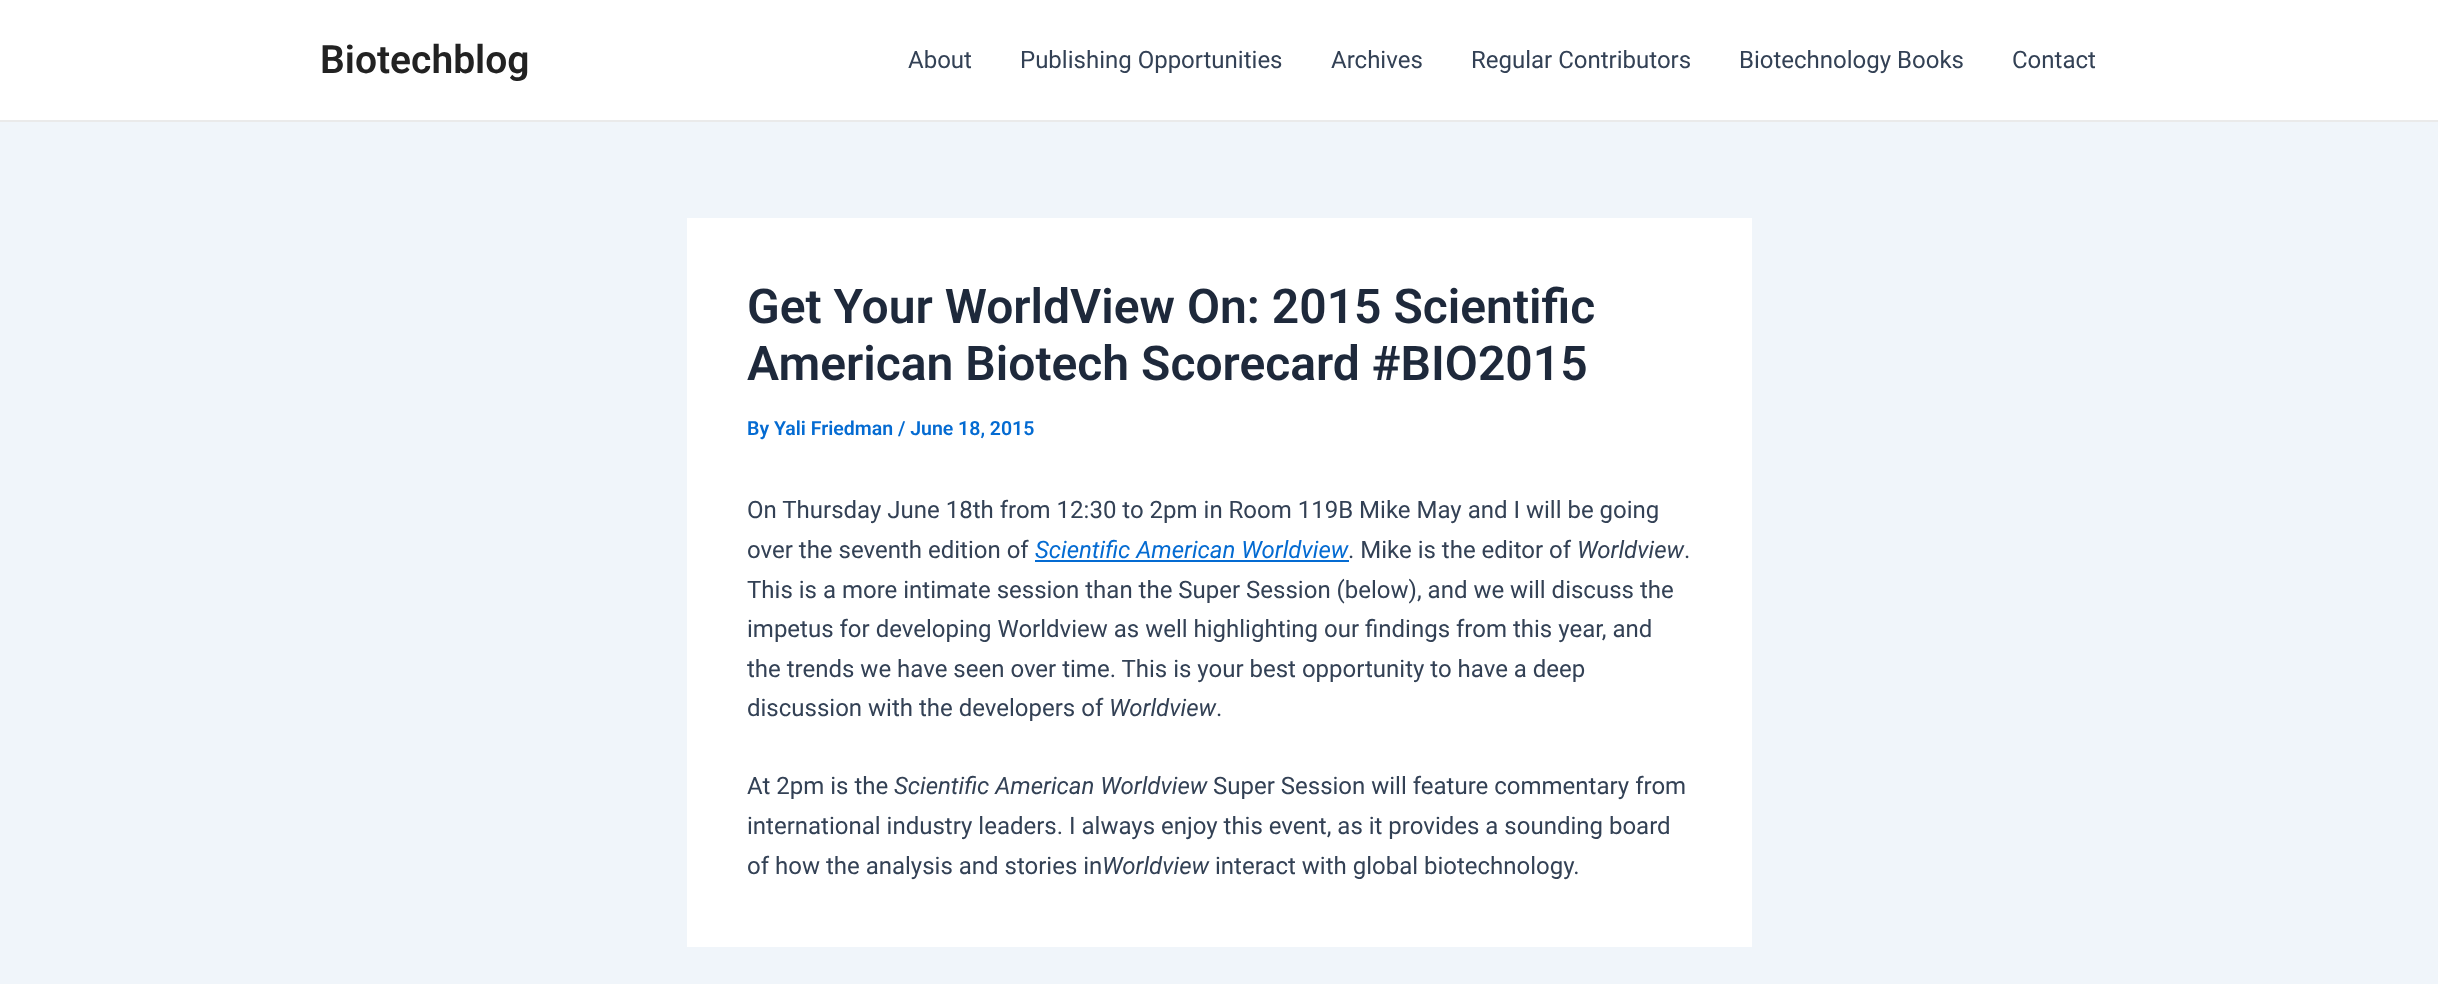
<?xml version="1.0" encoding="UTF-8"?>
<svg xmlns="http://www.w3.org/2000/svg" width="2438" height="984">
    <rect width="100%" height="100%" fill="#F0F5FA"/>
    <rect x="0" y="0" width="2438" height="120" fill="#FFFFFF"/>
    <rect x="0" y="120" width="2438" height="2" fill="#EAEAEA"/>
    <text x="320" y="73" font-family="Roboto" font-size="39" font-weight="600" fill="#222222">Biotechblog</text>
    <text x="908" y="68" font-family="Roboto" font-size="24" fill="#334155">About</text>
    <text x="1020" y="68" font-family="Roboto" font-size="24" fill="#334155">Publishing Opportunities</text>
    <text x="1331" y="68" font-family="Roboto" font-size="24" fill="#334155">Archives</text>
    <text x="1471" y="68" font-family="Roboto" font-size="24" fill="#334155">Regular Contributors</text>
    <text x="1739" y="68" font-family="Roboto" font-size="24" fill="#334155">Biotechnology Books</text>
    <text x="2012" y="68" font-family="Roboto" font-size="24" fill="#334155">Contact</text>
    <rect x="687" y="218" width="1065" height="729" fill="#FFFFFF"/>
    <text font-family="Roboto" font-size="48" font-weight="600" fill="#1E293B">
        <tspan x="747" y="323">Get Your WorldView On: 2015 Scientific</tspan>
        <tspan x="747" y="380">American Biotech Scorecard #BIO2015</tspan>
    </text>
    <text x="747" y="435" font-family="Roboto" font-size="19.5" font-weight="600" fill="#046BD2">By Yali Friedman / June 18, 2015</text>
    <text font-family="Roboto" font-size="24" fill="#334155">
        <tspan x="747" y="518">On Thursday June 18th from 12:30 to 2pm in Room 119B Mike May and I will be going</tspan>
        <tspan x="747" y="558">over the seventh edition of</tspan>
    </text>
    <text x="1035" y="558" font-family="Roboto" font-size="24" font-style="italic" fill="#046BD2">Scientific American Worldview</text>
    <rect x="1035" y="560" width="314" height="2" fill="#046BD2"/>
    <text x="1348" y="558" font-family="Roboto" font-size="24" fill="#334155">. Mike is the editor of</text>
    <text x="1577" y="558" font-family="Roboto" font-size="24" font-style="italic" fill="#334155">Worldview</text>
    <text x="1684" y="558" font-family="Roboto" font-size="24" fill="#334155">.</text>
    <text font-family="Roboto" font-size="24" fill="#334155">
        <tspan x="747" y="598">This is a more intimate session than the Super Session (below), and we will discuss the</tspan>
        <tspan x="747" y="637">impetus for developing Worldview as well highlighting our findings from this year, and</tspan>
        <tspan x="747" y="677">the trends we have seen over time. This is your best opportunity to have a deep</tspan>
        <tspan x="747" y="716">discussion with the developers of</tspan>
    </text>
    <text x="1109" y="716" font-family="Roboto" font-size="24" font-style="italic" fill="#334155">Worldview</text>
    <text x="1216" y="716" font-family="Roboto" font-size="24" fill="#334155">.</text>
    <text x="747" y="794" font-family="Roboto" font-size="24" fill="#334155">At 2pm is the</text>
    <text x="894" y="794" font-family="Roboto" font-size="24" font-style="italic" fill="#334155">Scientific American Worldview</text>
    <text x="1213" y="794" font-family="Roboto" font-size="24" fill="#334155">Super Session will feature commentary from</text>
    <text font-family="Roboto" font-size="24" fill="#334155">
        <tspan x="747" y="834">international industry leaders. I always enjoy this event, as it provides a sounding board</tspan>
        <tspan x="747" y="874">of how the analysis and stories in</tspan>
    </text>
    <text x="1102" y="874" font-family="Roboto" font-size="24" font-style="italic" fill="#334155">Worldview</text>
    <text x="1215" y="874" font-family="Roboto" font-size="24" fill="#334155">interact with global biotechnology.</text>
</svg>
